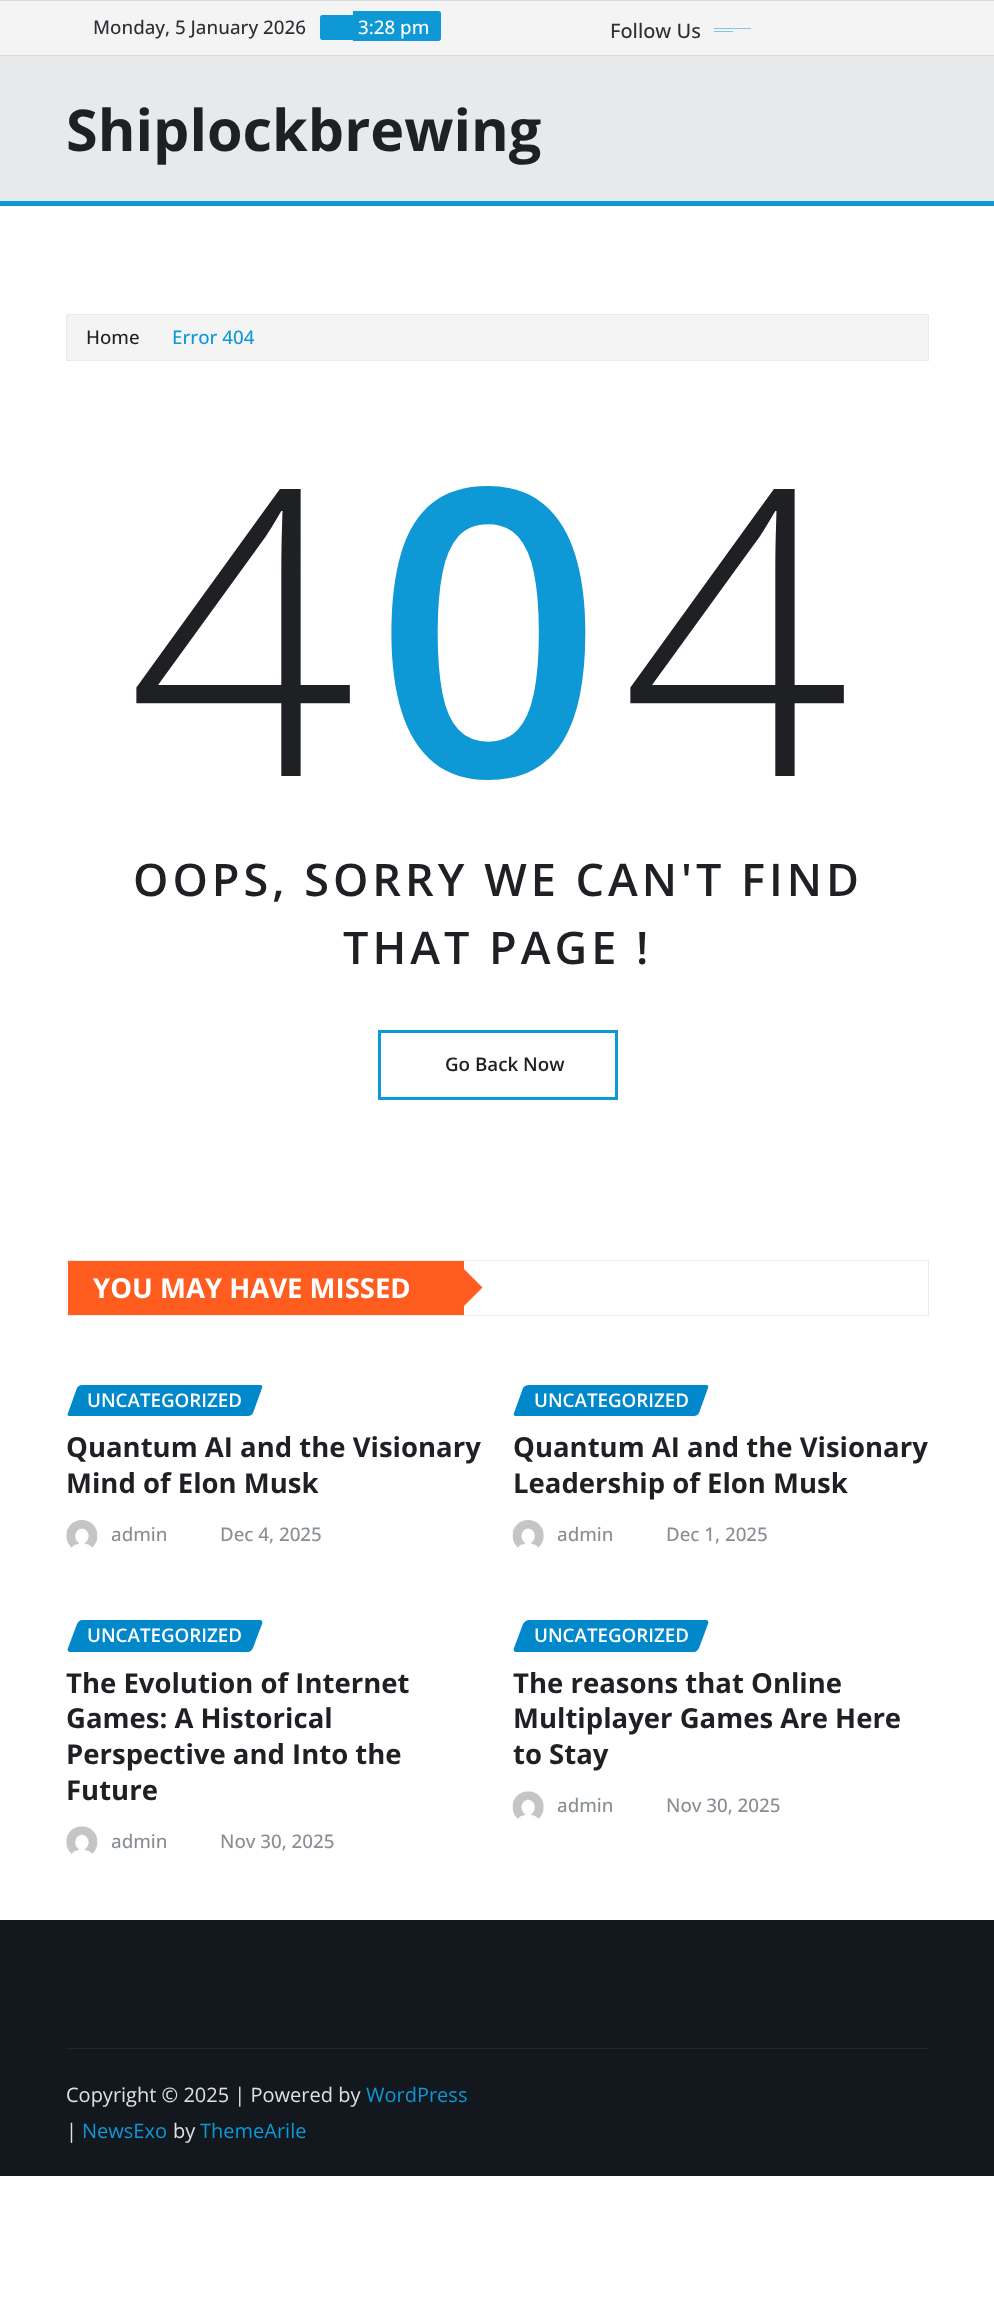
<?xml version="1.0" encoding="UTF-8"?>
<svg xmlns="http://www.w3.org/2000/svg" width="994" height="2312">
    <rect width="100%" height="100%" fill="#FFFFFF"/>
    <rect x="0" y="1" width="994" height="54" fill="#F4F4F5"/>
    <rect x="0" y="0" width="994" height="1" fill="#DCDCDD"/>
    <rect x="0" y="55" width="994" height="1" fill="#DCDCDD"/>
    <text x="93" y="34" font-family="Open Sans" font-size="18.75" font-weight="500" fill="#2C2F34">Monday, 5 January 2026</text>
    <path d="M 353 11 H 438.5 C 440 11 441 12 441 13.5 V 38.5 C 441 40 440 41 438.5 41 H 353 Z" fill="#0E98D6"/>
    <text x="358" y="34" font-family="Open Sans" font-size="18.75" font-weight="500" fill="#FFFFFF">3:28 pm</text>
    <path d="M 322.5 15 H 353 V 40 H 322.5 C 321 40 320 39 320 37.5 V 17.5 C 320 16 321 15 322.5 15 Z" fill="#0E98D6"/>
    <text x="610" y="38" font-family="Open Sans" font-size="20" font-weight="500" fill="#2C2F34">Follow Us</text>
    <rect x="714" y="28" width="37" height="1" fill="#81C6E6"/>
    <rect x="714" y="31" width="19" height="1" fill="#81C6E6"/>
    <rect x="0" y="56" width="994" height="145" fill="#E8E9EA"/>
    <text x="66" y="151" font-family="Open Sans" font-size="57.5" font-weight="700" fill="#1F2024">Shiplockbrewing</text>
    <rect x="0" y="201" width="994" height="5" fill="#0E98D6"/>
    <rect x="66.5" y="314.5" width="862" height="46" fill="#F4F4F5" stroke="#EBEBEB"/>
    <text x="86" y="344" font-family="Open Sans" font-size="18.75" font-weight="500" fill="#1F2024">Home</text>
    <text x="172" y="344" font-family="Open Sans" font-size="18.75" font-weight="500" fill="#0E98D6">Error 404</text>
    <text x="127" y="776" font-family="Open Sans" font-size="400" font-weight="300" letter-spacing="19" fill="#1F2024">4</text>
    <text x="374" y="776" font-family="Open Sans" font-size="400" font-weight="600" letter-spacing="19" fill="#0E98D6">0</text>
    <text x="621" y="776" font-family="Open Sans" font-size="400" font-weight="300" letter-spacing="19" fill="#1F2024">4</text>
    <text x="133" y="896" font-family="Open Sans" font-size="45" font-weight="600" letter-spacing="4" fill="#1F2024">OOPS, SORRY WE CAN'T FIND</text>
    <text x="343" y="964" font-family="Open Sans" font-size="45" font-weight="600" letter-spacing="4" fill="#1F2024">THAT PAGE !</text>
    <rect x="379.5" y="1031.5" width="237" height="67" fill="none" stroke="#0E98D6" stroke-width="3"/>
    <text x="445" y="1071" font-family="Open Sans" font-size="18.75" font-weight="600" fill="#1F2024">Go Back Now</text>
    <rect x="66.5" y="1260.5" width="862" height="55" fill="none" stroke="#EBEBEB"/>
    <rect x="68" y="1261" width="396" height="54" fill="#FF5D20"/>
    <text x="93" y="1298" font-family="Open Sans" font-size="27.5" font-weight="700" fill="#FFFFFF">YOU MAY HAVE MISSED</text>
    <path d="M 464 1306 V 1269 L 482.5 1287.5 Z" fill="#FF5D20"/>
    <path d="M 82 1385 H 260 C 262 1385 263 1386 262 1388 L 253 1413 C 252 1415 250 1416 248 1416 H 70 C 68 1416 67 1415 68 1413 L 77 1388 C 78 1386 80 1385 82 1385 Z" fill="#0088CB"/>
    <text x="87" y="1407" font-family="Open Sans" font-size="18.75" font-weight="600" fill="#FFFFFF">UNCATEGORIZED</text>
    <text font-family="Open Sans" font-size="27.5" font-weight="700" fill="#1F2024">
        <tspan x="66" y="1457">Quantum AI and the Visionary</tspan>
        <tspan x="66" y="1493">Mind of Elon Musk</tspan>
    </text>
    <image x="66" y="1520" width="32" height="28" href="img_01.png"/>
    <text x="111" y="1541" font-family="Open Sans" font-size="18.75" font-weight="500" fill="#878E94">admin</text>
    <text x="220" y="1541" font-family="Open Sans" font-size="18.75" font-weight="500" fill="#878E94">Dec 4, 2025</text>
    <path d="M 529 1385 H 706 C 708 1385 709 1386 708 1388 L 699 1413 C 698 1415 696 1416 694 1416 H 516 C 514 1416 513 1415 514 1413 L 523 1388 C 524 1386 527 1385 529 1385 Z" fill="#0088CB"/>
    <text x="534" y="1407" font-family="Open Sans" font-size="18.75" font-weight="600" fill="#FFFFFF">UNCATEGORIZED</text>
    <text font-family="Open Sans" font-size="27.5" font-weight="700" fill="#1F2024">
        <tspan x="513" y="1457">Quantum AI and the Visionary</tspan>
        <tspan x="513" y="1493">Leadership of Elon Musk</tspan>
    </text>
    <image x="512" y="1520" width="32" height="29" href="img_02.png"/>
    <text x="557" y="1541" font-family="Open Sans" font-size="18.75" font-weight="500" fill="#878E94">admin</text>
    <text x="666" y="1541" font-family="Open Sans" font-size="18.75" font-weight="500" fill="#878E94">Dec 1, 2025</text>
    <path d="M 82 1620 H 260 C 262 1620 263 1622 262 1624 L 253 1648 C 252 1650 250 1652 248 1652 H 70 C 68 1652 67 1650 68 1648 L 77 1624 C 78 1622 80 1620 82 1620 Z" fill="#0088CB"/>
    <text x="87" y="1642" font-family="Open Sans" font-size="18.75" font-weight="600" fill="#FFFFFF">UNCATEGORIZED</text>
    <text font-family="Open Sans" font-size="27.5" font-weight="700" fill="#1F2024">
        <tspan x="66" y="1693">The Evolution of Internet</tspan>
        <tspan x="66" y="1728">Games: A Historical</tspan>
        <tspan x="66" y="1764">Perspective and Into the</tspan>
        <tspan x="66" y="1800">Future</tspan>
    </text>
    <image x="66" y="1826" width="32" height="28" href="img_03.png"/>
    <text x="111" y="1848" font-family="Open Sans" font-size="18.75" font-weight="500" fill="#878E94">admin</text>
    <text x="220" y="1848" font-family="Open Sans" font-size="18.75" font-weight="500" fill="#878E94">Nov 30, 2025</text>
    <path d="M 529 1620 H 706 C 708 1620 709 1622 708 1624 L 699 1648 C 698 1650 696 1652 694 1652 H 516 C 514 1652 513 1650 514 1648 L 523 1624 C 524 1622 527 1620 529 1620 Z" fill="#0088CB"/>
    <text x="534" y="1642" font-family="Open Sans" font-size="18.75" font-weight="600" fill="#FFFFFF">UNCATEGORIZED</text>
    <text font-family="Open Sans" font-size="27.5" font-weight="700" fill="#1F2024">
        <tspan x="513" y="1693">The reasons that Online</tspan>
        <tspan x="513" y="1728">Multiplayer Games Are Here</tspan>
        <tspan x="513" y="1764">to Stay</tspan>
    </text>
    <image x="512" y="1791" width="32" height="30" href="img_04.png"/>
    <text x="557" y="1812" font-family="Open Sans" font-size="18.75" font-weight="500" fill="#878E94">admin</text>
    <text x="666" y="1812" font-family="Open Sans" font-size="18.75" font-weight="500" fill="#878E94">Nov 30, 2025</text>
    <rect x="0" y="1920" width="994" height="256" fill="#13171E"/>
    <rect x="66" y="2048" width="863" height="1" fill="#22252B"/>
    <text x="66" y="2102" font-family="Open Sans" font-size="20" fill="#E0E0E0">Copyright © 2025 | Powered by</text>
    <text x="366" y="2102" font-family="Open Sans" font-size="20" fill="#0E98D6">WordPress</text>
    <text x="66" y="2138" font-family="Open Sans" font-size="20" fill="#E0E0E0">|</text>
    <text x="82" y="2138" font-family="Open Sans" font-size="20" fill="#0E98D6">NewsExo</text>
    <text x="173" y="2138" font-family="Open Sans" font-size="20" fill="#E0E0E0">by</text>
    <text x="200" y="2138" font-family="Open Sans" font-size="20" fill="#0E98D6">ThemeArile</text>
</svg>
